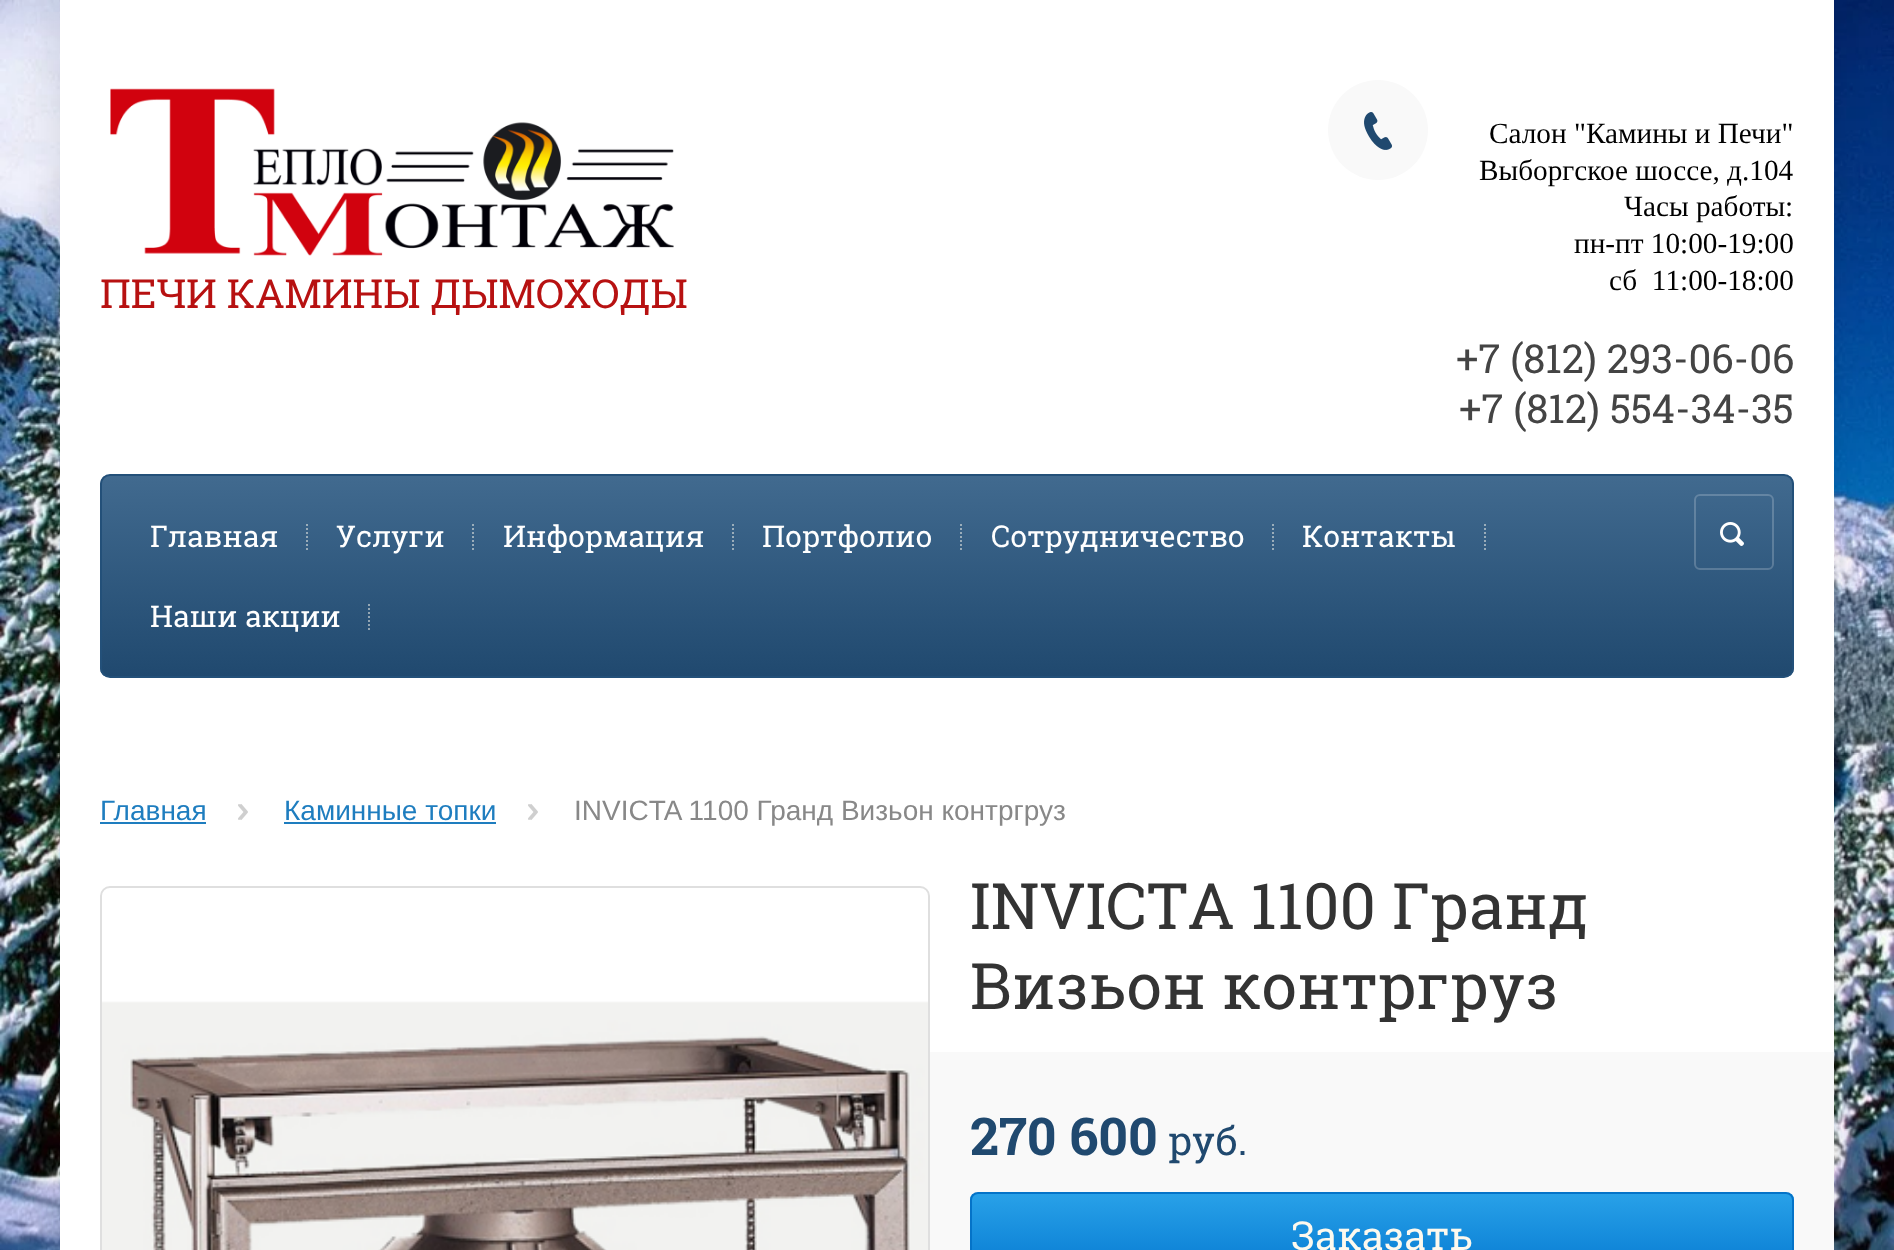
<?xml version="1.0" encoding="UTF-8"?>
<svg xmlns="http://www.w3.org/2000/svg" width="1894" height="1250">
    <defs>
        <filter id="blur1" x="-50%" y="-200%" width="200%" height="500%"><feGaussianBlur stdDeviation="20"/></filter>
        <clipPath id="clip1"><rect x="100" y="474" width="1694" height="204" rx="10"/></clipPath>
        <linearGradient id="g1" gradientUnits="userSpaceOnUse" x1="947" y1="476" x2="947" y2="676"><stop offset="0" stop-color="#416A8F"/><stop offset="1" stop-color="#20496F"/></linearGradient>
        <clipPath id="clip2"><rect x="970" y="1192" width="824" height="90" rx="8"/></clipPath>
        <linearGradient id="g2" gradientUnits="userSpaceOnUse" x1="1382" y1="1194" x2="1382" y2="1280"><stop offset="0" stop-color="#28A1E8"/><stop offset="1" stop-color="#0477D0"/></linearGradient>
    </defs>
    <rect width="100%" height="100%" fill="#FFFFFF"/>
    <image x="0" y="0" width="1894" height="1250" href="img_01.png"/>
    <rect x="60" y="0" width="1774" height="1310" fill="#000000" fill-opacity="0.1" filter="url(#blur1)"/>
    <rect x="60" y="0" width="1774" height="1250" fill="#FFFFFF"/>
    <image x="110" y="88" width="564" height="168" href="img_02.png"/>
    <text x="100" y="308" font-family="Roboto Slab" font-size="40" fill="#B71111">ПЕЧИ КАМИНЫ ДЫМОХОДЫ</text>
    <circle cx="1378" cy="130" r="50" fill="#F9F9F9"/>
    <image x="1364" y="112" width="28" height="38" href="img_03.png"/>
    <text x="1489" y="143" font-family="Liberation Serif" font-size="29.25" fill="#000000">Салон "Камины и Печи"</text>
    <text x="1479" y="180" font-family="Liberation Serif" font-size="29.25" fill="#000000">Выборгское шоссе, д.104</text>
    <text x="1624" y="216" font-family="Liberation Serif" font-size="29.25" fill="#000000">Часы работы:</text>
    <text x="1574" y="253" font-family="Liberation Serif" font-size="29.25" fill="#000000">пн-пт 10:00-19:00</text>
    <text x="1609" y="290" font-family="Liberation Serif" font-size="29.25" fill="#000000" xml:space="preserve">сб  11:00-18:00</text>
    <text x="1456" y="373" font-family="Roboto Slab" font-size="40" fill="#444444">+7 (812) 293-06-06</text>
    <text x="1459" y="423" font-family="Roboto Slab" font-size="40" fill="#444444">+7 (812) 554-34-35</text>
    <g clip-path="url(#clip1)">
        <rect x="100" y="476" width="1694" height="200" fill="url(#g1)"/>
    </g>
    <rect x="101" y="475" width="1692" height="202" rx="9" fill="none" stroke="#235079" stroke-width="2"/>
    <text x="150" y="547" font-family="Roboto Slab" font-size="30" fill="#FFFFFF">Главная</text>
    <path d="M 307 524 V 550" fill="none" stroke="#FDF9EE" stroke-opacity="0.5" stroke-width="2" stroke-dasharray="2 2"/>
    <text x="336" y="547" font-family="Roboto Slab" font-size="30" fill="#FFFFFF">Услуги</text>
    <path d="M 473 524 V 550" fill="none" stroke="#FDF9EE" stroke-opacity="0.5" stroke-width="2" stroke-dasharray="2 2"/>
    <text x="503" y="547" font-family="Roboto Slab" font-size="30" fill="#FFFFFF">Информация</text>
    <path d="M 733 524 V 550" fill="none" stroke="#FDF9EE" stroke-opacity="0.5" stroke-width="2" stroke-dasharray="2 2"/>
    <text x="762" y="547" font-family="Roboto Slab" font-size="30" fill="#FFFFFF">Портфолио</text>
    <path d="M 961 524 V 550" fill="none" stroke="#FDF9EE" stroke-opacity="0.5" stroke-width="2" stroke-dasharray="2 2"/>
    <text x="991" y="547" font-family="Roboto Slab" font-size="30" fill="#FFFFFF">Сотрудничество</text>
    <path d="M 1273 524 V 550" fill="none" stroke="#FDF9EE" stroke-opacity="0.5" stroke-width="2" stroke-dasharray="2 2"/>
    <text x="1302" y="547" font-family="Roboto Slab" font-size="30" fill="#FFFFFF">Контакты</text>
    <path d="M 1485 524 V 550" fill="none" stroke="#FDF9EE" stroke-opacity="0.5" stroke-width="2" stroke-dasharray="2 2"/>
    <text x="150" y="627" font-family="Roboto Slab" font-size="30" fill="#FFFFFF">Наши акции</text>
    <path d="M 369 604 V 630" fill="none" stroke="#FDF9EE" stroke-opacity="0.5" stroke-width="2" stroke-dasharray="2 2"/>
    <rect x="1695" y="495" width="78" height="74" rx="5" fill="none" stroke="#FFFFFF" stroke-opacity="0.2" stroke-width="2"/>
    <image x="1720" y="522" width="24" height="24" href="img_04.png"/>
    <text x="100" y="820" font-family="Liberation Sans" font-size="28" fill="#1E7DBF">Главная</text>
    <rect x="100" y="822" width="106" height="2" fill="#1E7DBF"/>
    <image x="238" y="804" width="10" height="16" href="img_05.png"/>
    <text x="284" y="820" font-family="Liberation Sans" font-size="28" fill="#1E7DBF">Каминные топки</text>
    <rect x="284" y="822" width="212" height="2" fill="#1E7DBF"/>
    <image x="528" y="804" width="10" height="16" href="img_05.png"/>
    <text x="574" y="820" font-family="Liberation Sans" font-size="28" fill="#888888">INVICTA 1100 Гранд Визьон контргруз</text>
    <rect x="101" y="887" width="828" height="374" rx="9" fill="none" stroke="#DFDFDF" stroke-width="2"/>
    <image x="102" y="1001" width="826" height="249" href="img_06.png"/>
    <text font-family="Roboto Slab" font-size="64" fill="#333333">
        <tspan x="970" y="929">INVICTA 1100 Гранд</tspan>
        <tspan x="970" y="1009">Визьон контргруз</tspan>
    </text>
    <rect x="930" y="1052" width="904" height="198" fill="#F9F9F9"/>
    <text x="970" y="1155" font-family="Roboto Slab" font-size="52" font-weight="700" fill="#20496F">270 600</text>
    <text x="1168" y="1155" font-family="Roboto Slab" font-size="40" fill="#20496F">руб.</text>
    <g clip-path="url(#clip2)">
        <rect x="970" y="1194" width="824" height="56" fill="url(#g2)"/>
    </g>
    <rect x="971" y="1193" width="822" height="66" rx="7" fill="none" stroke="#0473C8" stroke-width="2"/>
    <text x="1291" y="1250" font-family="Roboto Slab" font-size="40" fill="#FDF9EE">Заказать</text>
</svg>
